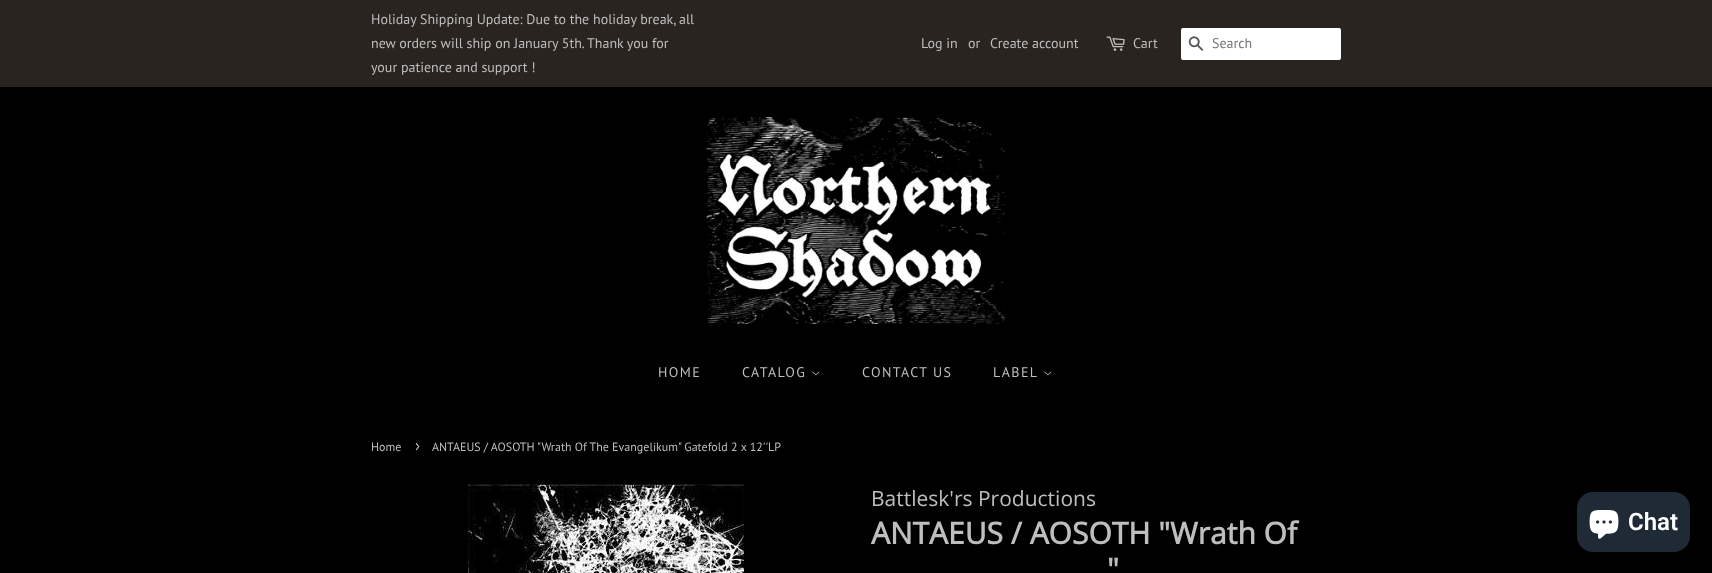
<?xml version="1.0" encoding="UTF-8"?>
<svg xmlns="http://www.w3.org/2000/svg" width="1712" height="573">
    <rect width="100%" height="100%" fill="#000000"/>
    <rect x="0" y="0" width="1712" height="87" fill="#292420"/>
    <text font-family="PT Sans" font-size="14" fill="#BFBEBD">
        <tspan x="371" y="24">Holiday Shipping Update: Due to the holiday break, all</tspan>
        <tspan x="371" y="48">new orders will ship on January 5th. Thank you for</tspan>
        <tspan x="371" y="72">your patience and support !</tspan>
    </text>
    <text x="921" y="48" font-family="PT Sans" font-size="14" fill="#BFBEBD">Log in</text>
    <text x="968" y="48" font-family="PT Sans" font-size="14" fill="#BFBEBD">or</text>
    <text x="990" y="48" font-family="PT Sans" font-size="14" fill="#BFBEBD">Create account</text>
    <image x="1106" y="36" width="19" height="15" href="img_01.png"/>
    <text x="1133" y="48" font-family="PT Sans" font-size="14" fill="#BFBEBD">Cart</text>
    <rect x="1181" y="28" width="160" height="32" rx="2" fill="#FFFFFF"/>
    <image x="1188" y="36" width="16" height="15" href="img_02.png"/>
    <text x="1212" y="48" font-family="PT Sans" font-size="14" fill="#757575">Search</text>
    <image x="706" y="117" width="300" height="207" href="img_03.png"/>
    <text x="658" y="377" font-family="PT Sans" font-size="14" letter-spacing="1.4" fill="#BFBEBD">HOME</text>
    <text x="742" y="377" font-family="PT Sans" font-size="14" letter-spacing="1.4" fill="#BFBEBD">CATALOG</text>
    <image x="812" y="371" width="8" height="5" href="img_04.png"/>
    <text x="862" y="377" font-family="PT Sans" font-size="14" letter-spacing="1.4" fill="#BFBEBD">CONTACT US</text>
    <text x="993" y="377" font-family="PT Sans" font-size="14" letter-spacing="1.4" fill="#BFBEBD">LABEL</text>
    <image x="1044" y="371" width="8" height="5" href="img_04.png"/>
    <text x="371" y="451" font-family="PT Sans" font-size="12" fill="#BFBEBD">Home</text>
    <text x="415" y="451" font-family="PT Sans" font-size="17" fill="#BFBEBD">›</text>
    <text x="432" y="451" font-family="PT Sans" font-size="12" fill="#BFBEBD">ANTAEUS / AOSOTH "Wrath Of The Evangelikum" Gatefold 2 x 12''LP</text>
    <image x="468" y="484" width="276" height="89" href="img_05.png"/>
    <text x="871" y="506" font-family="Open Sans" font-size="21" fill="#BFBEBD">Battlesk'rs Productions</text>
    <text x="871" y="544" font-family="Open Sans" font-size="30" font-weight="700" fill="#BFBEBD">ANTAEUS / AOSOTH "Wrath Of</text>
    <text x="1107" y="580" font-family="Open Sans" font-size="30" font-weight="700" fill="#BFBEBD">"</text>
    <rect x="1577" y="492" width="113" height="60" rx="16" fill="#202A36"/>
    <image x="1589" y="510" width="30" height="29" href="img_06.png"/>
    <text x="1628" y="530" font-family="Roboto" font-size="24" font-weight="600" fill="#FFFFFF">Chat</text>
</svg>
